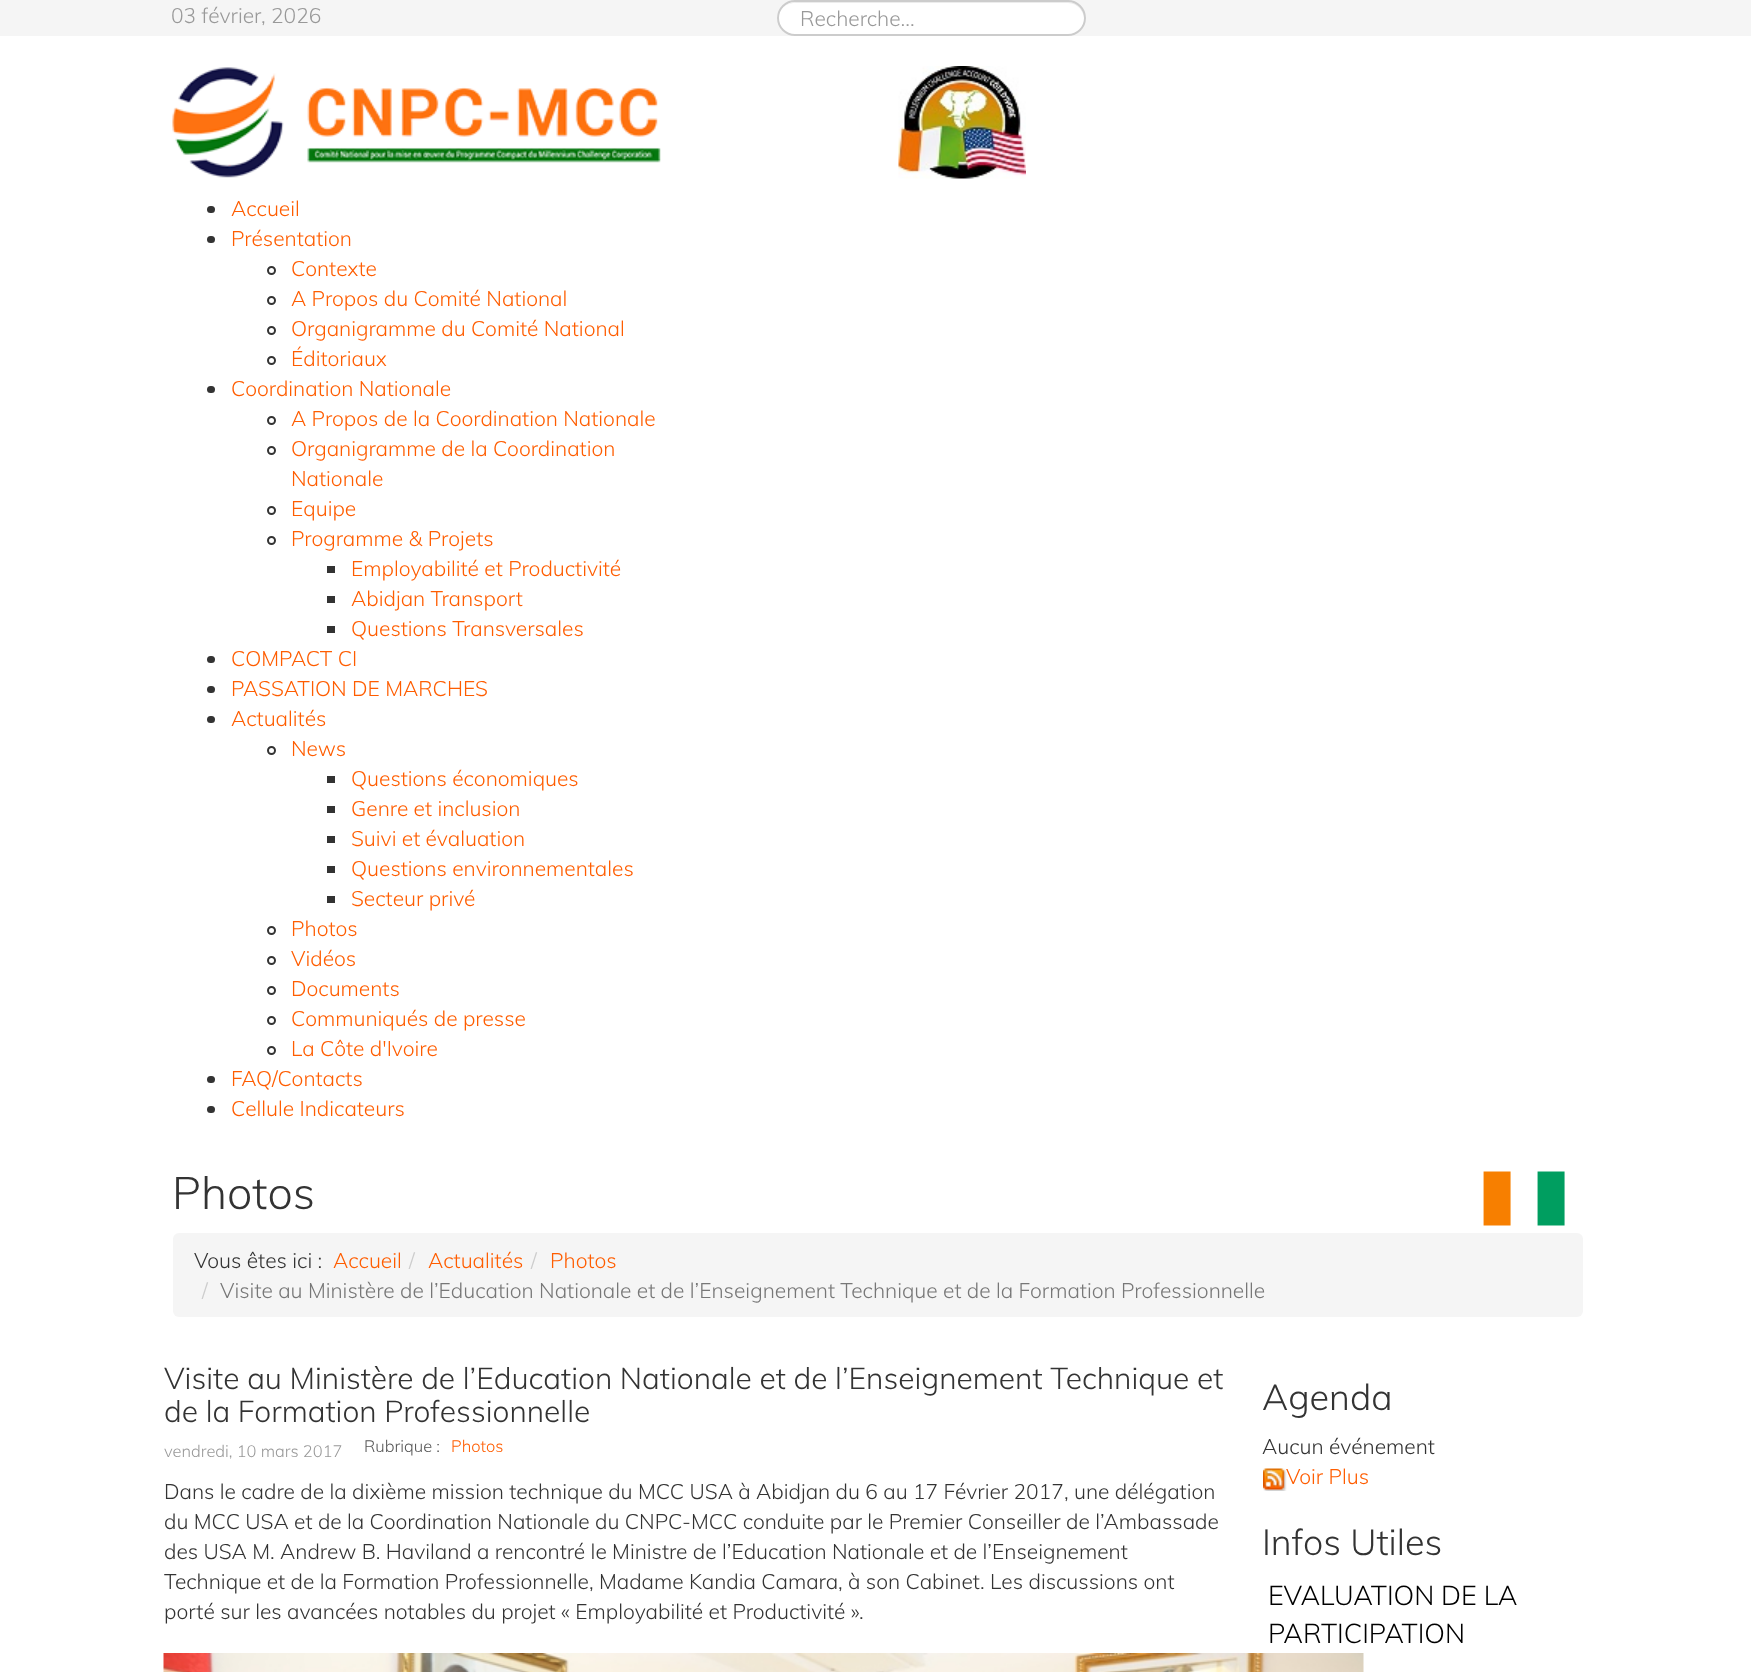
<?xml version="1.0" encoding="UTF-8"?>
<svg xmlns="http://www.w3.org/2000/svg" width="1751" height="1672">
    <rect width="100%" height="100%" fill="#FFFFFF"/>
    <rect x="0" y="0" width="1751" height="36" fill="#F5F5F5"/>
    <text x="171" y="23" font-family="Muli" font-size="21" font-weight="300" fill="#999999">03 février, 2026</text>
    <rect x="777" y="0" width="309" height="36" rx="18" fill="#FFFFFF"/>
    <path d="M 795 3 H 1068 C 1081 3 1088 18 1082 28 C 1084 26 1085 22 1085 18 C 1085 9 1078 2 1068 2 H 796 C 790 2 785 5 782 9 C 785 5 790 3 795 3 Z" fill="#ECECEC"/>
    <rect x="778" y="1" width="307" height="34" rx="17" fill="none" stroke="#CCCCCC" stroke-width="2"/>
    <text x="800" y="26" font-family="Muli" font-size="21" font-weight="300" fill="#999999">Recherche...</text>
    <image x="172" y="67" width="489" height="111" href="img_01.png"/>
    <image x="898" y="66" width="128" height="113" href="img_02.png"/>
    <rect x="207" y="206" width="8" height="7" rx="3.5" fill="#333333"/>
    <text x="231" y="216" font-family="Muli" font-size="21" font-weight="300" fill="#FF5D00">Accueil</text>
    <rect x="207" y="236" width="8" height="7" rx="3.5" fill="#333333"/>
    <text x="231" y="246" font-family="Muli" font-size="21" font-weight="300" fill="#FF5D00">Présentation</text>
    <circle cx="271.5" cy="270.5" r="3.5" fill="none" stroke="#333333" stroke-width="2"/>
    <text x="291" y="276" font-family="Muli" font-size="21" font-weight="300" fill="#FF5D00">Contexte</text>
    <circle cx="271.5" cy="300.5" r="3.5" fill="none" stroke="#333333" stroke-width="2"/>
    <text x="291" y="306" font-family="Muli" font-size="21" font-weight="300" fill="#FF5D00">A Propos du Comité National</text>
    <circle cx="271.5" cy="330.5" r="3.5" fill="none" stroke="#333333" stroke-width="2"/>
    <text x="291" y="336" font-family="Muli" font-size="21" font-weight="300" fill="#FF5D00">Organigramme du Comité National</text>
    <circle cx="271.5" cy="360.5" r="3.5" fill="none" stroke="#333333" stroke-width="2"/>
    <text x="291" y="366" font-family="Muli" font-size="21" font-weight="300" fill="#FF5D00">Éditoriaux</text>
    <rect x="207" y="386" width="8" height="7" rx="3.5" fill="#333333"/>
    <text x="231" y="396" font-family="Muli" font-size="21" font-weight="300" fill="#FF5D00">Coordination Nationale</text>
    <circle cx="271.5" cy="420.5" r="3.5" fill="none" stroke="#333333" stroke-width="2"/>
    <text x="291" y="426" font-family="Muli" font-size="21" font-weight="300" fill="#FF5D00">A Propos de la Coordination Nationale</text>
    <circle cx="271.5" cy="450.5" r="3.5" fill="none" stroke="#333333" stroke-width="2"/>
    <text font-family="Muli" font-size="21" font-weight="300" fill="#FF5D00">
        <tspan x="291" y="456">Organigramme de la Coordination</tspan>
        <tspan x="291" y="486">Nationale</tspan>
    </text>
    <circle cx="271.5" cy="510.5" r="3.5" fill="none" stroke="#333333" stroke-width="2"/>
    <text x="291" y="516" font-family="Muli" font-size="21" font-weight="300" fill="#FF5D00">Equipe</text>
    <circle cx="271.5" cy="540.5" r="3.5" fill="none" stroke="#333333" stroke-width="2"/>
    <text x="291" y="546" font-family="Muli" font-size="21" font-weight="300" fill="#FF5D00">Programme &amp; Projets</text>
    <rect x="327" y="566" width="8" height="7" fill="#333333"/>
    <text x="351" y="576" font-family="Muli" font-size="21" font-weight="300" fill="#FF5D00">Employabilité et Productivité</text>
    <rect x="327" y="596" width="8" height="7" fill="#333333"/>
    <text x="351" y="606" font-family="Muli" font-size="21" font-weight="300" fill="#FF5D00">Abidjan Transport</text>
    <rect x="327" y="626" width="8" height="7" fill="#333333"/>
    <text x="351" y="636" font-family="Muli" font-size="21" font-weight="300" fill="#FF5D00">Questions Transversales</text>
    <rect x="207" y="656" width="8" height="7" rx="3.5" fill="#333333"/>
    <text x="231" y="666" font-family="Muli" font-size="21" font-weight="300" fill="#FF5D00">COMPACT CI</text>
    <rect x="207" y="686" width="8" height="7" rx="3.5" fill="#333333"/>
    <text x="231" y="696" font-family="Muli" font-size="21" font-weight="300" fill="#FF5D00">PASSATION DE MARCHES</text>
    <rect x="207" y="716" width="8" height="7" rx="3.5" fill="#333333"/>
    <text x="231" y="726" font-family="Muli" font-size="21" font-weight="300" fill="#FF5D00">Actualités</text>
    <circle cx="271.5" cy="750.5" r="3.5" fill="none" stroke="#333333" stroke-width="2"/>
    <text x="291" y="756" font-family="Muli" font-size="21" font-weight="300" fill="#FF5D00">News</text>
    <rect x="327" y="776" width="8" height="7" fill="#333333"/>
    <text x="351" y="786" font-family="Muli" font-size="21" font-weight="300" fill="#FF5D00">Questions économiques</text>
    <rect x="327" y="806" width="8" height="7" fill="#333333"/>
    <text x="351" y="816" font-family="Muli" font-size="21" font-weight="300" fill="#FF5D00">Genre et inclusion</text>
    <rect x="327" y="836" width="8" height="7" fill="#333333"/>
    <text x="351" y="846" font-family="Muli" font-size="21" font-weight="300" fill="#FF5D00">Suivi et évaluation</text>
    <rect x="327" y="866" width="8" height="7" fill="#333333"/>
    <text x="351" y="876" font-family="Muli" font-size="21" font-weight="300" fill="#FF5D00">Questions environnementales</text>
    <rect x="327" y="896" width="8" height="7" fill="#333333"/>
    <text x="351" y="906" font-family="Muli" font-size="21" font-weight="300" fill="#FF5D00">Secteur privé</text>
    <circle cx="271.5" cy="930.5" r="3.5" fill="none" stroke="#333333" stroke-width="2"/>
    <text x="291" y="936" font-family="Muli" font-size="21" font-weight="300" fill="#FF5D00">Photos</text>
    <circle cx="271.5" cy="960.5" r="3.5" fill="none" stroke="#333333" stroke-width="2"/>
    <text x="291" y="966" font-family="Muli" font-size="21" font-weight="300" fill="#FF5D00">Vidéos</text>
    <circle cx="271.5" cy="990.5" r="3.5" fill="none" stroke="#333333" stroke-width="2"/>
    <text x="291" y="996" font-family="Muli" font-size="21" font-weight="300" fill="#FF5D00">Documents</text>
    <circle cx="271.5" cy="1020.5" r="3.5" fill="none" stroke="#333333" stroke-width="2"/>
    <text x="291" y="1026" font-family="Muli" font-size="21" font-weight="300" fill="#FF5D00">Communiqués de presse</text>
    <circle cx="271.5" cy="1050.5" r="3.5" fill="none" stroke="#333333" stroke-width="2"/>
    <text x="291" y="1056" font-family="Muli" font-size="21" font-weight="300" fill="#FF5D00">La Côte d'Ivoire</text>
    <rect x="207" y="1076" width="8" height="7" rx="3.5" fill="#333333"/>
    <text x="231" y="1086" font-family="Muli" font-size="21" font-weight="300" fill="#FF5D00">FAQ/Contacts</text>
    <rect x="207" y="1106" width="8" height="7" rx="3.5" fill="#333333"/>
    <text x="231" y="1116" font-family="Muli" font-size="21" font-weight="300" fill="#FF5D00">Cellule Indicateurs</text>
    <image x="1483" y="1171" width="82" height="55" href="img_03.png"/>
    <text x="172" y="1209" font-family="Muli" font-size="45" font-weight="300" fill="#333333">Photos</text>
    <rect x="173" y="1233" width="1410" height="84" rx="6" fill="#F5F5F5"/>
    <text x="194" y="1268" font-family="Muli" font-size="21" font-weight="300" fill="#333333">Vous êtes ici :</text>
    <text x="333" y="1268" font-family="Muli" font-size="21" font-weight="300" fill="#FF5D00">Accueil</text>
    <text x="409" y="1268" font-family="Muli" font-size="21" font-weight="300" fill="#CCCCCC">/</text>
    <text x="428" y="1268" font-family="Muli" font-size="21" font-weight="300" fill="#FF5D00">Actualités</text>
    <text x="531" y="1268" font-family="Muli" font-size="21" font-weight="300" fill="#CCCCCC">/</text>
    <text x="550" y="1268" font-family="Muli" font-size="21" font-weight="300" fill="#FF5D00">Photos</text>
    <text x="202" y="1298" font-family="Muli" font-size="21" font-weight="300" fill="#CCCCCC">/</text>
    <text x="220" y="1298" font-family="Muli" font-size="21" font-weight="300" fill="#777777">Visite au Ministère de l’Education Nationale et de l’Enseignement Technique et de la Formation Professionnelle</text>
    <text font-family="Muli" font-size="30" font-weight="300" fill="#333333">
        <tspan x="164" y="1389">Visite au Ministère de l’Education Nationale et de l’Enseignement Technique et</tspan>
        <tspan x="164" y="1422">de la Formation Professionnelle</tspan>
    </text>
    <text x="164" y="1457" font-family="Muli" font-size="16.5" font-weight="300" fill="#999999">vendredi, 10 mars 2017</text>
    <text x="364" y="1452" font-family="Muli" font-size="16.5" font-weight="300" fill="#555555">Rubrique :</text>
    <text x="451" y="1452" font-family="Muli" font-size="16.5" font-weight="300" fill="#FF5D00">Photos</text>
    <text font-family="Muli" font-size="21" font-weight="300" fill="#333333">
        <tspan x="164" y="1499">Dans le cadre de la dixième mission technique du MCC USA à Abidjan du 6 au 17 Février 2017, une délégation</tspan>
        <tspan x="164" y="1529">du MCC USA et de la Coordination Nationale du CNPC-MCC conduite par le Premier Conseiller de l’Ambassade</tspan>
        <tspan x="164" y="1559">des USA M. Andrew B. Haviland a rencontré le Ministre de l’Education Nationale et de l’Enseignement</tspan>
        <tspan x="164" y="1589">Technique et de la Formation Professionnelle, Madame Kandia Camara, à son Cabinet. Les discussions ont</tspan>
        <tspan x="164" y="1619">porté sur les avancées notables du projet « Employabilité et Productivité ».</tspan>
    </text>
    <image x="163" y="1653" width="1201" height="19" href="img_04.png"/>
    <text x="1262" y="1410" font-family="Muli" font-size="36" font-weight="300" fill="#333333">Agenda</text>
    <text x="1262" y="1454" font-family="Muli" font-size="21" font-weight="300" fill="#333333">Aucun événement</text>
    <image x="1263" y="1468" width="24" height="23" href="img_05.png"/>
    <text x="1286" y="1484" font-family="Muli" font-size="21" font-weight="300" fill="#FF5D00">Voir Plus</text>
    <text x="1262" y="1555" font-family="Muli" font-size="36" font-weight="300" fill="#333333">Infos Utiles</text>
    <text font-family="Muli" font-size="27" font-weight="300" fill="#000000">
        <tspan x="1268" y="1605">EVALUATION DE LA</tspan>
        <tspan x="1268" y="1643">PARTICIPATION</tspan>
    </text>
</svg>
